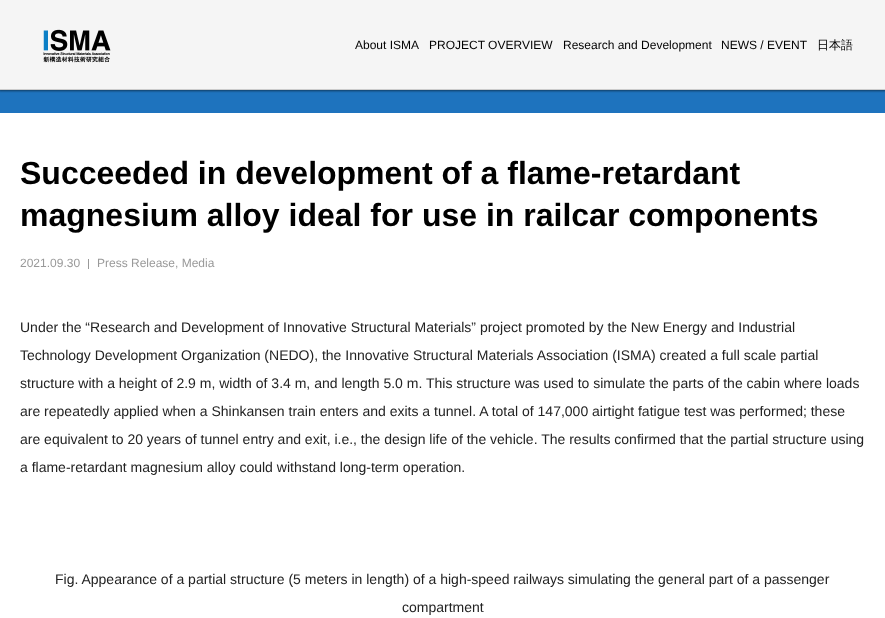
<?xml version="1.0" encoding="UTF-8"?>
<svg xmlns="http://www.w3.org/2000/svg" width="885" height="618">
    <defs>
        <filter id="blur1" x="-50%" y="-200%" width="200%" height="500%"><feGaussianBlur stdDeviation="1"/></filter>
    </defs>
    <rect width="100%" height="100%" fill="#FFFFFF"/>
    <rect x="0" y="90" width="885" height="23" fill="#1E73BE"/>
    <rect x="-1" y="-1" width="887" height="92" fill="#000000" fill-opacity="0.5" filter="url(#blur1)"/>
    <rect x="0" y="0" width="885" height="89" fill="#F5F5F5"/>
    <rect x="0" y="89" width="885" height="1" fill="#CCCCCC"/>
    <image x="43" y="29" width="68" height="34" href="img_01.png"/>
    <text x="355" y="49" font-family="Liberation Sans" font-size="12" fill="#000000">About ISMA</text>
    <text x="429" y="49" font-family="Liberation Sans" font-size="12" fill="#000000">PROJECT OVERVIEW</text>
    <text x="563" y="49" font-family="Liberation Sans" font-size="12" fill="#000000">Research and Development</text>
    <text x="721" y="49" font-family="Liberation Sans" font-size="12" fill="#000000">NEWS / EVENT</text>
    <text x="817" y="49" font-family="WenQuanYi Zen Hei" font-size="12" font-weight="500" fill="#000000">日本語</text>
    <text font-family="Liberation Sans" font-size="32" font-weight="700" fill="#000000">
        <tspan x="20" y="184">Succeeded in development of a flame-retardant</tspan>
        <tspan x="20" y="226">magnesium alloy ideal for use in railcar components</tspan>
    </text>
    <text x="20" y="267" font-family="Liberation Sans" font-size="12" fill="#999999">2021.09.30</text>
    <rect x="88" y="259" width="1" height="10" fill="#999999"/>
    <text x="97" y="267" font-family="Liberation Sans" font-size="12" fill="#999999">Press Release, Media</text>
    <text x="20" y="332" font-family="Liberation Sans" font-size="14" fill="#222222">Under the “Research and Development of Innovative Structural Materials” project promoted by the New Energy and Industrial</text>
    <text x="20" y="360" font-family="Liberation Sans" font-size="14" fill="#222222">Technology Development Organization (NEDO), the Innovative Structural Materials Association (ISMA) created a full scale partial</text>
    <text x="20" y="388" font-family="Liberation Sans" font-size="14" fill="#222222">structure with a height of 2.9 m, width of 3.4 m, and length 5.0 m. This structure was used to simulate the parts of the cabin where loads</text>
    <text x="20" y="416" font-family="Liberation Sans" font-size="14" fill="#222222">are repeatedly applied when a Shinkansen train enters and exits a tunnel. A total of 147,000 airtight fatigue test was performed; these</text>
    <text x="20" y="444" font-family="Liberation Sans" font-size="14" fill="#222222">are equivalent to 20 years of tunnel entry and exit, i.e., the design life of the vehicle. The results confirmed that the partial structure using</text>
    <text x="20" y="472" font-family="Liberation Sans" font-size="14" fill="#222222">a flame-retardant magnesium alloy could withstand long-term operation.</text>
    <text x="55" y="584" font-family="Liberation Sans" font-size="14" fill="#222222">Fig. Appearance of a partial structure (5 meters in length) of a high-speed railways simulating the general part of a passenger</text>
    <text x="402" y="612" font-family="Liberation Sans" font-size="14" fill="#222222">compartment</text>
</svg>
